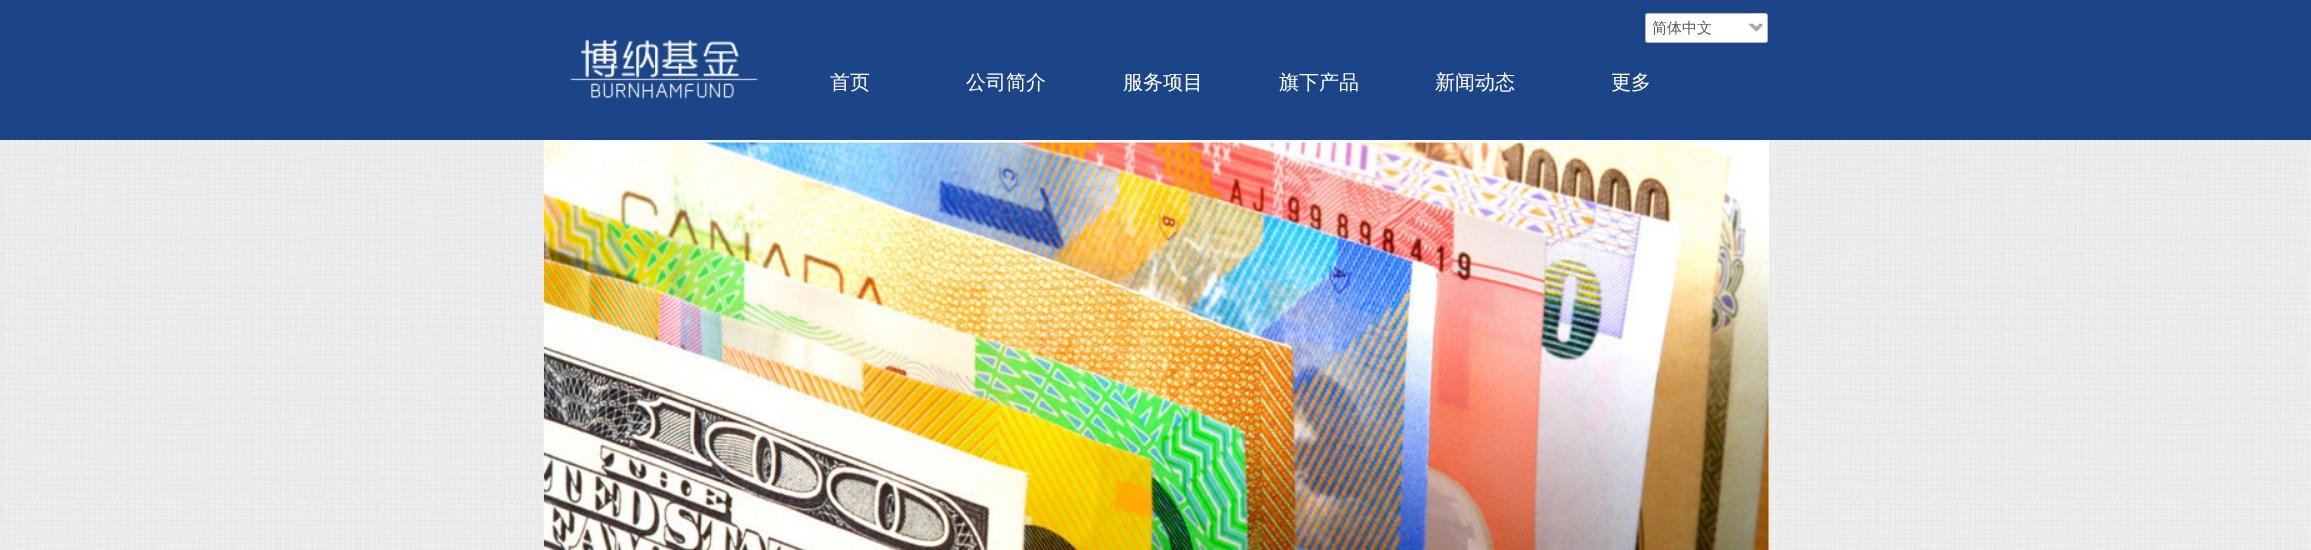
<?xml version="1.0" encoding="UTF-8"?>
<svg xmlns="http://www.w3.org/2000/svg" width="2311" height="550">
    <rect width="100%" height="100%" fill="#FFFFFF"/>
    <image x="0" y="140" width="2311" height="410" href="img_04.png"/>
    <rect x="544" y="140" width="1225" height="410" fill="#FFFFFF"/>
    <rect x="0" y="0" width="2311" height="140" fill="#1C4587"/>
    <rect x="1645.5" y="13.5" width="122" height="29" rx="2" fill="#FFFFFF" stroke="#B5B5B5"/>
    <text x="1652" y="33" font-family="WenQuanYi Zen Hei" font-size="15" font-weight="500" fill="#5A5A5A">简体中文</text>
    <image x="1748" y="13" width="19" height="19" href="img_01.png"/>
    <image x="570" y="39" width="188" height="60" href="img_02.png"/>
    <text x="830" y="89" font-family="WenQuanYi Zen Hei" font-size="20" font-weight="500" fill="#FFFFFF">首页</text>
    <text x="966" y="89" font-family="WenQuanYi Zen Hei" font-size="20" font-weight="500" fill="#FFFFFF">公司简介</text>
    <text x="1123" y="89" font-family="WenQuanYi Zen Hei" font-size="20" font-weight="500" fill="#FFFFFF">服务项目</text>
    <text x="1279" y="89" font-family="WenQuanYi Zen Hei" font-size="20" font-weight="500" fill="#FFFFFF">旗下产品</text>
    <text x="1435" y="89" font-family="WenQuanYi Zen Hei" font-size="20" font-weight="500" fill="#FFFFFF">新闻动态</text>
    <text x="1611" y="89" font-family="WenQuanYi Zen Hei" font-size="20" font-weight="500" fill="#FFFFFF">更多</text>
    <image x="543" y="142" width="1226" height="408" href="img_03.png"/>
</svg>
